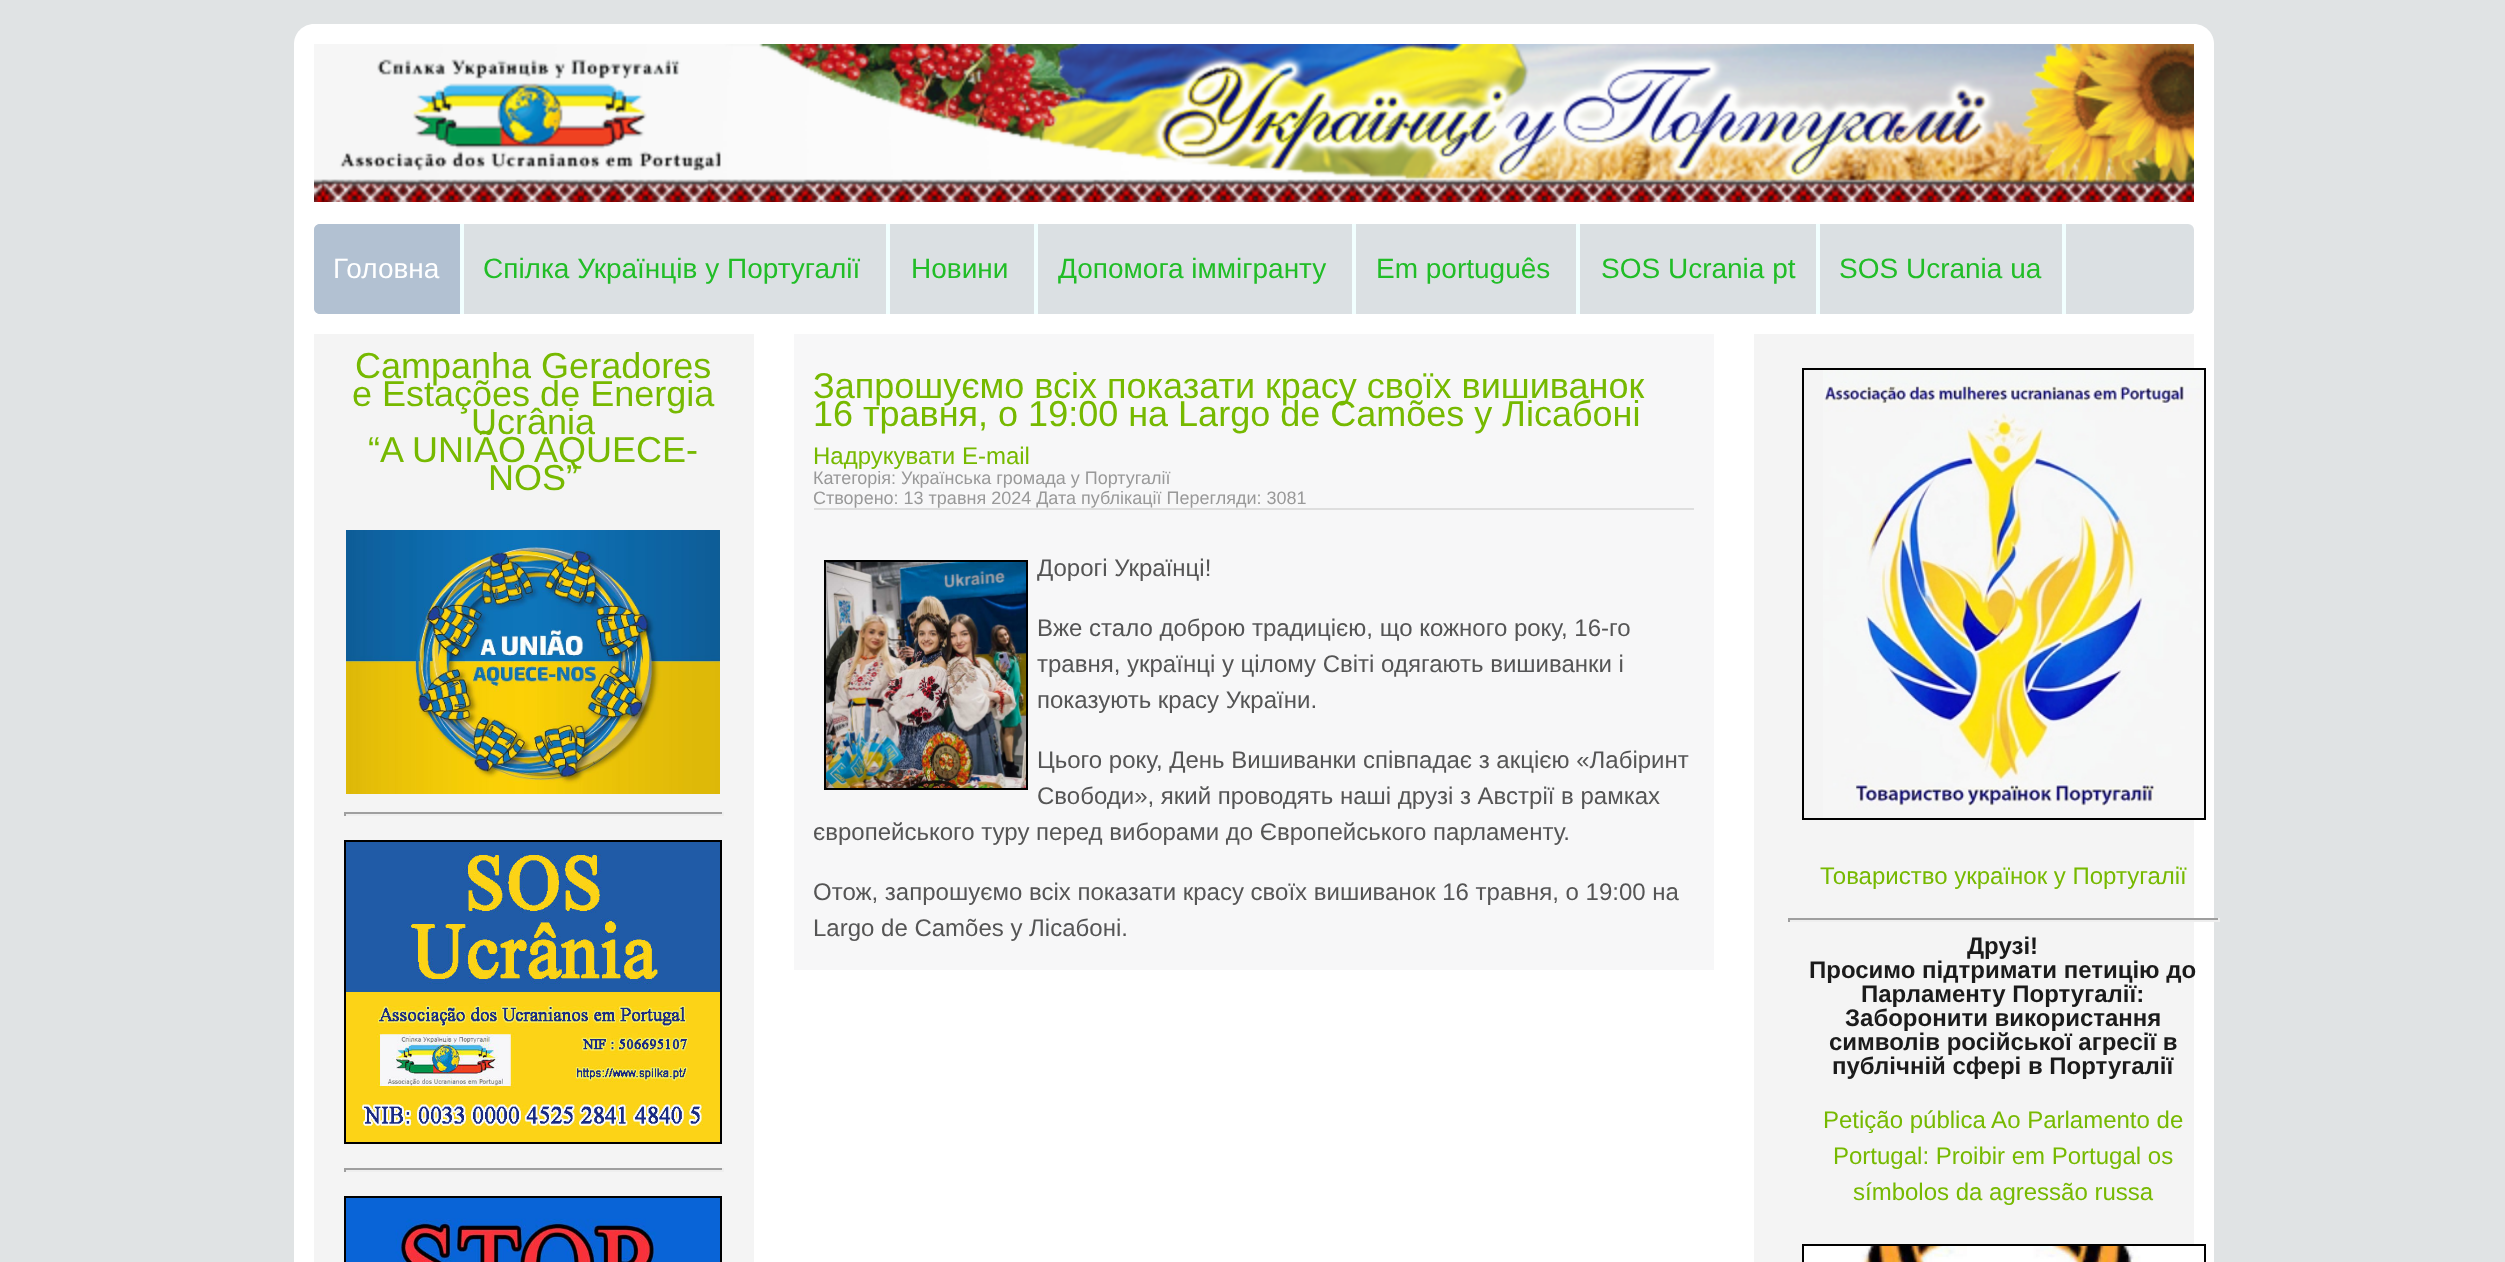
<?xml version="1.0" encoding="UTF-8"?>
<svg xmlns="http://www.w3.org/2000/svg" width="2505" height="1262">
    <rect width="100%" height="100%" fill="#E0E3E4"/>
    <path d="M 314 24 H 2194 C 2205 24 2214 33 2214 44 V 224 H 294 V 44 C 294 33 303 24 314 24 Z" fill="#FFFFFF"/>
    <image x="314" y="44" width="1880" height="158" href="img_01.png"/>
    <image x="339" y="59" width="382" height="112" href="img_02.png"/>
    <rect x="294" y="224" width="1920" height="1038" fill="#FFFFFF"/>
    <rect x="314" y="224" width="1880" height="90" rx="6" fill="#DBE0E3"/>
    <path d="M 320 224 H 464 V 314 H 320 C 316.5 314 314 311.5 314 308 V 230 C 314 226.5 316.5 224 320 224 Z" fill="#B2C1D2"/>
    <rect x="460" y="224" width="4" height="90" fill="#F1FFFF"/>
    <text x="333" y="278" font-family="Liberation Sans" font-size="28" fill="#FFFFFF">Головна</text>
    <rect x="886" y="224" width="4" height="90" fill="#F1FFFF"/>
    <text x="483" y="278" font-family="Liberation Sans" font-size="28" fill="#21BD27">Спілка Українців у Португалії</text>
    <rect x="1034" y="224" width="4" height="90" fill="#F1FFFF"/>
    <text x="911" y="278" font-family="Liberation Sans" font-size="28" fill="#21BD27">Новини</text>
    <rect x="1352" y="224" width="4" height="90" fill="#F1FFFF"/>
    <text x="1058" y="278" font-family="Liberation Sans" font-size="28" fill="#21BD27">Допомога іммігранту</text>
    <rect x="1576" y="224" width="4" height="90" fill="#F1FFFF"/>
    <text x="1376" y="278" font-family="Liberation Sans" font-size="28" fill="#21BD27">Em português</text>
    <rect x="1816" y="224" width="4" height="90" fill="#F1FFFF"/>
    <text x="1601" y="278" font-family="Liberation Sans" font-size="28" fill="#21BD27">SOS Ucrania pt</text>
    <rect x="2062" y="224" width="4" height="90" fill="#F1FFFF"/>
    <text x="1839" y="278" font-family="Liberation Sans" font-size="28" fill="#21BD27">SOS Ucrania ua</text>
    <rect x="314" y="334" width="440" height="928" fill="#F4F4F4"/>
    <text x="355" y="378" font-family="Liberation Sans" font-size="36" fill="#76B900">Campanha Geradores</text>
    <text x="352" y="406" font-family="Liberation Sans" font-size="36" fill="#76B900">e Estações de Energia</text>
    <text x="471" y="434" font-family="Liberation Sans" font-size="36" fill="#76B900">Ucrânia</text>
    <text x="368" y="462" font-family="Liberation Sans" font-size="36" fill="#76B900">“A UNIÃO AQUECE-</text>
    <text x="488" y="490" font-family="Liberation Sans" font-size="36" fill="#76B900">NOS”</text>
    <image x="346" y="530" width="374" height="264" href="img_03.png"/>
    <rect x="344" y="812" width="380" height="2" fill="#9F9F9F"/>
    <rect x="722" y="812" width="2" height="4" fill="#EEEEEE"/>
    <rect x="344" y="814" width="380" height="2" fill="#EEEEEE"/>
    <rect x="344" y="812" width="2" height="4" fill="#9F9F9F"/>
    <rect x="345" y="841" width="376" height="302" fill="none" stroke="#000000" stroke-width="2"/>
    <image x="346" y="842" width="374" height="300" href="img_04.png"/>
    <rect x="344" y="1168" width="380" height="2" fill="#9F9F9F"/>
    <rect x="722" y="1168" width="2" height="4" fill="#EEEEEE"/>
    <rect x="344" y="1170" width="380" height="2" fill="#EEEEEE"/>
    <rect x="344" y="1168" width="2" height="4" fill="#9F9F9F"/>
    <rect x="345" y="1197" width="376" height="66" fill="none" stroke="#000000" stroke-width="2"/>
    <image x="346" y="1198" width="374" height="64" href="img_05.png"/>
    <rect x="794" y="334" width="920" height="636" fill="#F7F7F8"/>
    <text font-family="Liberation Sans" font-size="36" fill="#76B900">
        <tspan x="813" y="398">Запрошуємо всіх показати красу своїх вишиванок</tspan>
        <tspan x="813" y="426">16 травня, о 19:00 на Largo de Camões у Лісабоні</tspan>
    </text>
    <text x="813" y="464" font-family="Liberation Sans" font-size="24" fill="#76B900">Надрукувати E-mail</text>
    <rect x="814" y="508" width="880" height="2" fill="#DEDEDE"/>
    <text font-family="Liberation Sans" font-size="18" fill="#999999">
        <tspan x="813" y="484">Категорія: Українська громада у Португалії</tspan>
        <tspan x="813" y="504">Створено: 13 травня 2024 Дата публікації Перегляди: 3081</tspan>
    </text>
    <rect x="825" y="561" width="202" height="228" fill="none" stroke="#000000" stroke-width="2"/>
    <image x="826" y="562" width="200" height="226" href="img_06.png"/>
    <text x="1037" y="576" font-family="Liberation Sans" font-size="24" fill="#555555">Дорогі Українці!</text>
    <text font-family="Liberation Sans" font-size="24" fill="#555555">
        <tspan x="1037" y="636">Вже стало доброю традицією, що кожного року, 16-го</tspan>
        <tspan x="1037" y="672">травня, українці у цілому Світі одягають вишиванки і</tspan>
        <tspan x="1037" y="708">показують красу України.</tspan>
    </text>
    <text font-family="Liberation Sans" font-size="24" fill="#555555">
        <tspan x="1037" y="768">Цього року, День Вишиванки співпадає з акцією «Лабіринт</tspan>
        <tspan x="1037" y="804">Свободи», який проводять наші друзі з Австрії в рамках</tspan>
    </text>
    <text x="813" y="840" font-family="Liberation Sans" font-size="24" fill="#555555">європейського туру перед виборами до Європейського парламенту.</text>
    <text font-family="Liberation Sans" font-size="24" fill="#555555">
        <tspan x="813" y="900">Отож, запрошуємо всіх показати красу своїх вишиванок 16 травня, о 19:00 на</tspan>
        <tspan x="813" y="936">Largo de Camões у Лісабоні.</tspan>
    </text>
    <rect x="1754" y="334" width="440" height="928" fill="#F4F4F4"/>
    <rect x="1803" y="369" width="402" height="450" fill="none" stroke="#000000" stroke-width="2"/>
    <image x="1823" y="370" width="381" height="448" href="img_07.png"/>
    <text x="1820" y="884" font-family="Liberation Sans" font-size="24" fill="#76B900">Товариство українок у Португалії</text>
    <rect x="1788" y="918" width="432" height="2" fill="#9F9F9F"/>
    <rect x="2218" y="918" width="2" height="4" fill="#EEEEEE"/>
    <rect x="1788" y="920" width="432" height="2" fill="#EEEEEE"/>
    <rect x="1788" y="918" width="2" height="4" fill="#9F9F9F"/>
    <text x="1967" y="954" font-family="Liberation Sans" font-size="24" font-weight="700" fill="#1B1B1B">Друзі!</text>
    <text x="1809" y="978" font-family="Liberation Sans" font-size="24" font-weight="700" fill="#1B1B1B">Просимо підтримати петицію до</text>
    <text x="1861" y="1002" font-family="Liberation Sans" font-size="24" font-weight="700" fill="#1B1B1B">Парламенту Португалії:</text>
    <text x="1845" y="1026" font-family="Liberation Sans" font-size="24" font-weight="700" fill="#1B1B1B">Заборонити використання</text>
    <text x="1829" y="1050" font-family="Liberation Sans" font-size="24" font-weight="700" fill="#1B1B1B">символів російської агресії в</text>
    <text x="1832" y="1074" font-family="Liberation Sans" font-size="24" font-weight="700" fill="#1B1B1B">публічній сфері в Португалії</text>
    <text x="1823" y="1128" font-family="Liberation Sans" font-size="24" fill="#76B900">Petição pública Ao Parlamento de</text>
    <text x="1833" y="1164" font-family="Liberation Sans" font-size="24" fill="#76B900">Portugal: Proibir em Portugal os</text>
    <text x="1853" y="1200" font-family="Liberation Sans" font-size="24" fill="#76B900">símbolos da agressão russa</text>
    <rect x="1803" y="1245" width="402" height="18" fill="none" stroke="#000000" stroke-width="2"/>
    <image x="1804" y="1246" width="390" height="16" href="img_08.png"/>
</svg>
